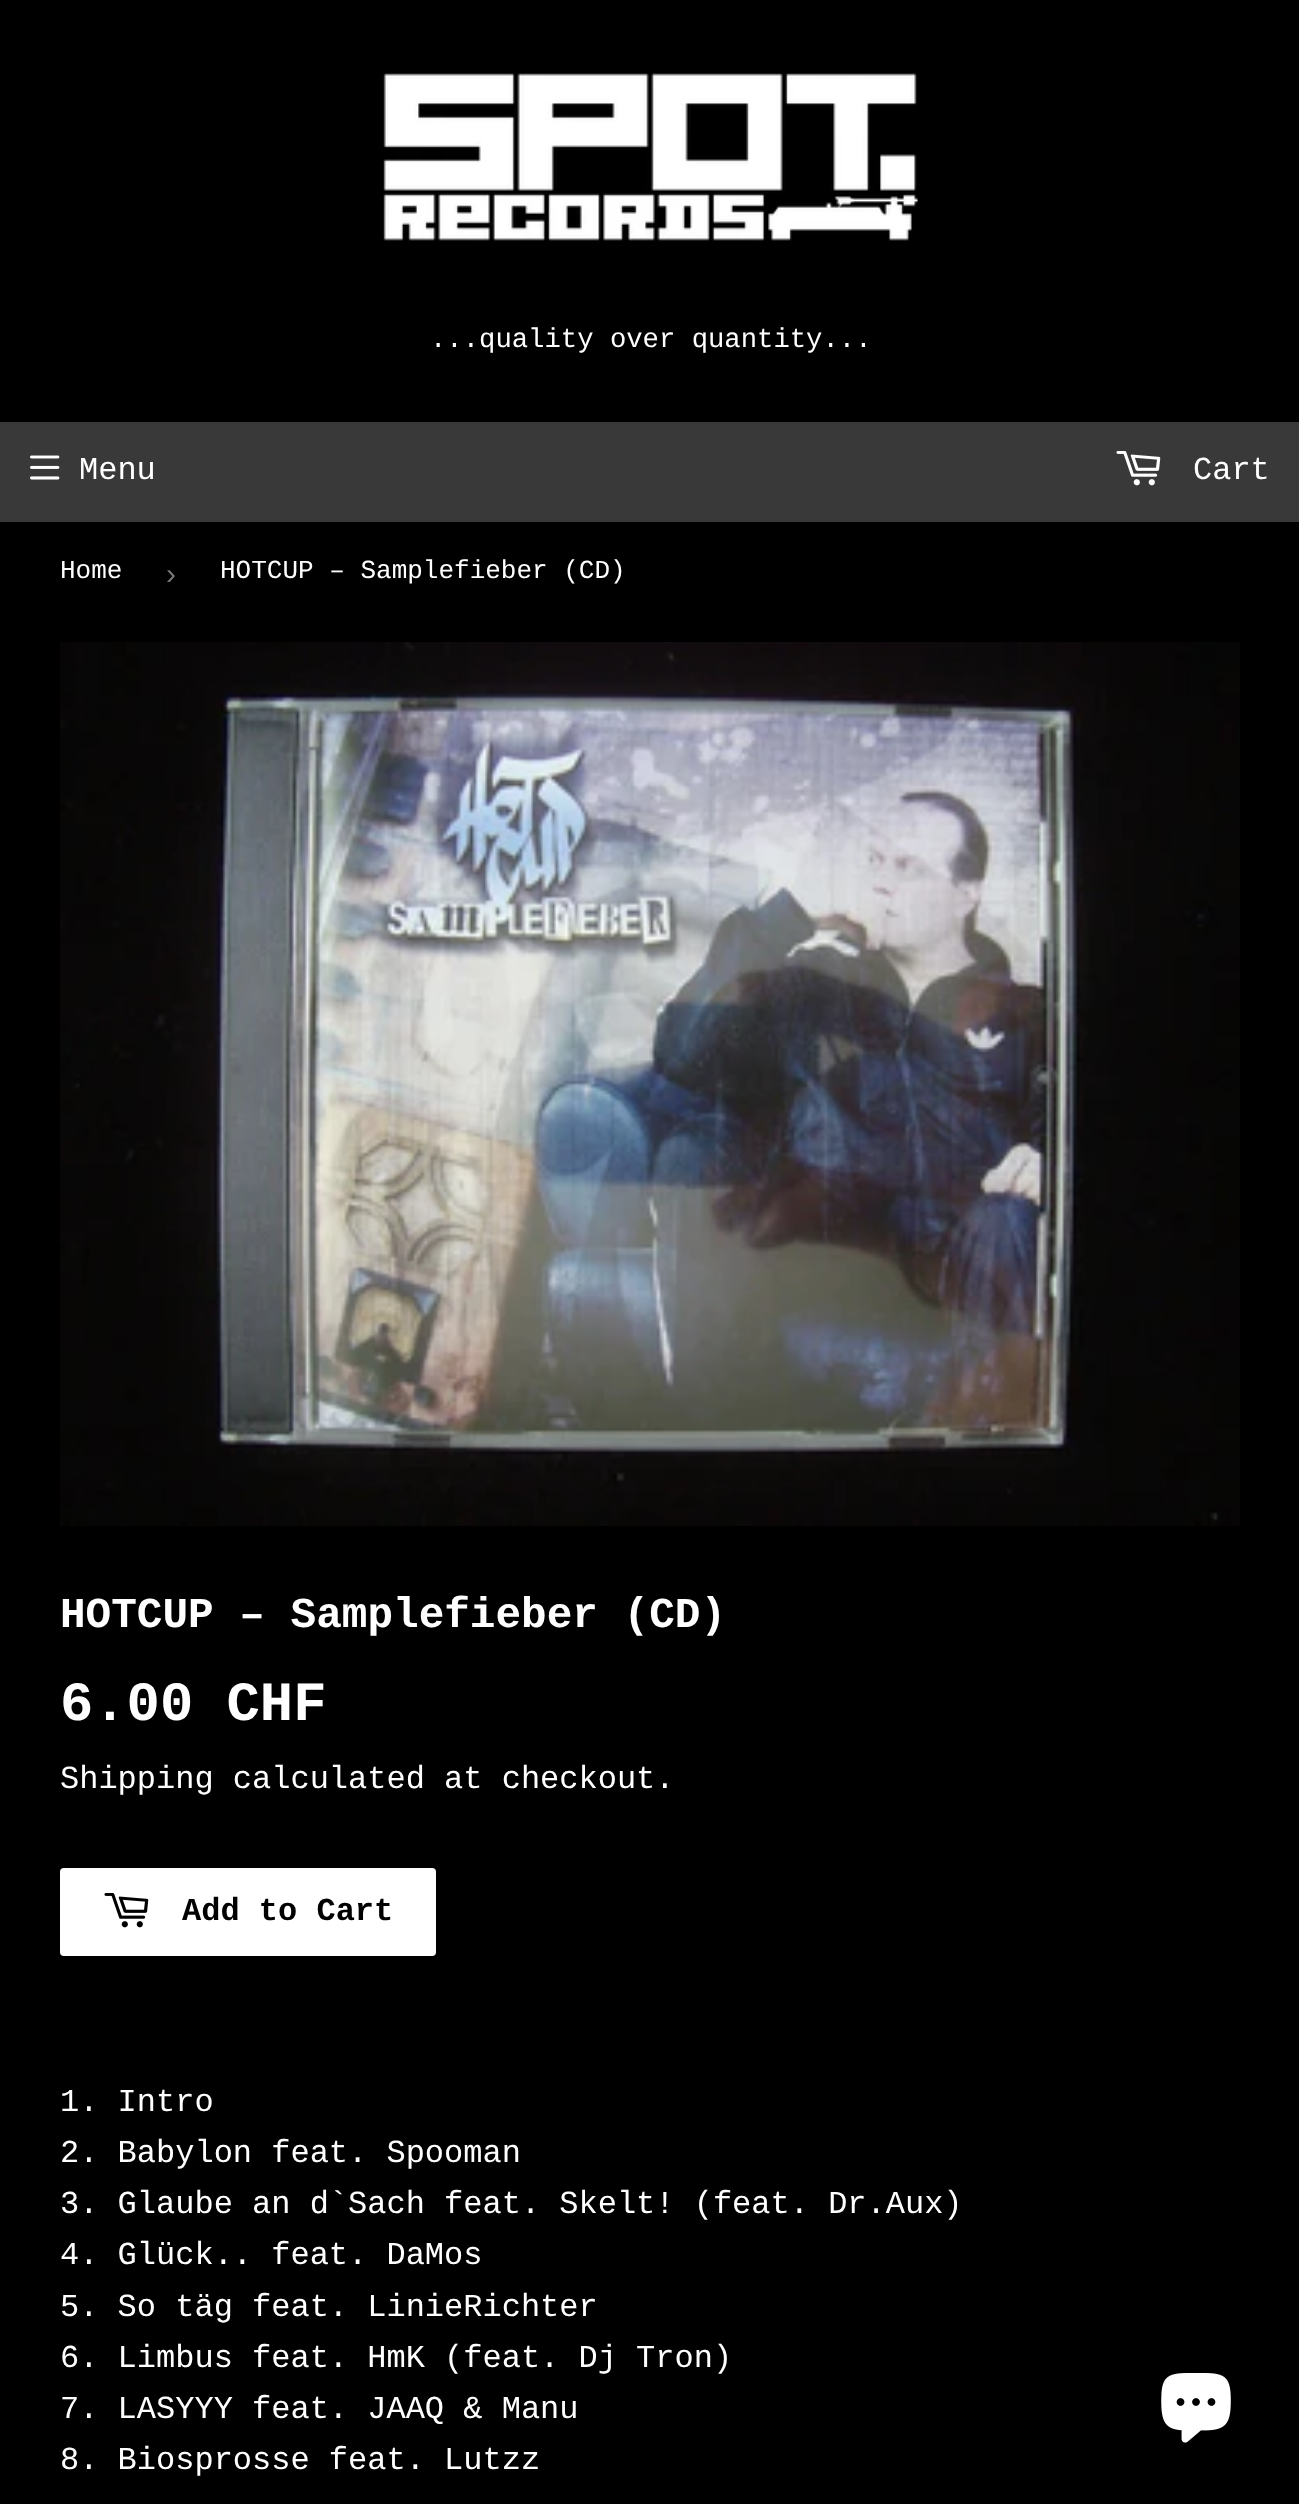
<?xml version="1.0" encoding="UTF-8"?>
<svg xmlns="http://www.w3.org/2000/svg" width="1299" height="2504">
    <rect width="100%" height="100%" fill="#000000"/>
    <image x="383" y="73" width="535" height="170" href="img_01.png"/>
    <text x="430" y="347" font-family="Liberation Mono" font-size="27.25" fill="#FFFFFF">...quality over quantity...</text>
    <rect x="0" y="422" width="1299" height="100" fill="#393939"/>
    <image x="30" y="455" width="30" height="25" href="img_02.png"/>
    <text x="79" y="479" font-family="Liberation Mono" font-size="32" fill="#FFFFFF">Menu</text>
    <image x="1116" y="451" width="45" height="35" href="img_03.png"/>
    <text x="1193" y="479" font-family="Liberation Mono" font-size="32" fill="#FFFFFF">Cart</text>
    <text x="60" y="578" font-family="Liberation Mono" font-size="26" fill="#FFFFFF">Home</text>
    <text x="166" y="584" font-family="Liberation Sans" font-size="30" fill="#767676">›</text>
    <text x="220" y="578" font-family="Liberation Mono" font-size="26" fill="#FFFFFF">HOTCUP – Samplefieber (CD)</text>
    <image x="60" y="642" width="1180" height="884" href="img_04.png"/>
    <text x="60" y="1627" font-family="Liberation Mono" font-size="42.7" font-weight="700" fill="#FFFFFF">HOTCUP – Samplefieber (CD)</text>
    <text x="60" y="1720" font-family="Liberation Mono" font-size="55.5" font-weight="700" fill="#FFFFFF">6.00 CHF</text>
    <text x="60" y="1788" font-family="Liberation Mono" font-size="32" fill="#FFFFFF">Shipping calculated at checkout.</text>
    <rect x="60" y="1868" width="376" height="88" rx="4" fill="#FFFFFF"/>
    <image x="104" y="1893" width="45" height="35" href="img_05.png"/>
    <text x="182" y="1920" font-family="Liberation Mono" font-size="32" font-weight="700" fill="#000000">Add to Cart</text>
    <text font-family="Liberation Mono" font-size="32" fill="#FFFFFF">
        <tspan x="60" y="2111">1. Intro</tspan>
        <tspan x="60" y="2162">2. Babylon feat. Spooman</tspan>
        <tspan x="60" y="2213">3. Glaube an d`Sach feat. Skelt! (feat. Dr.Aux)</tspan>
        <tspan x="60" y="2264">4. Glück.. feat. DaMos</tspan>
        <tspan x="60" y="2316">5. So täg feat. LinieRichter</tspan>
        <tspan x="60" y="2367">6. Limbus feat. HmK (feat. Dj Tron)</tspan>
        <tspan x="60" y="2418">7. LASYYY feat. JAAQ &amp; Manu</tspan>
        <tspan x="60" y="2469">8. Biosprosse feat. Lutzz</tspan>
    </text>
    <image x="1161" y="2373" width="70" height="70" href="img_06.png"/>
</svg>
